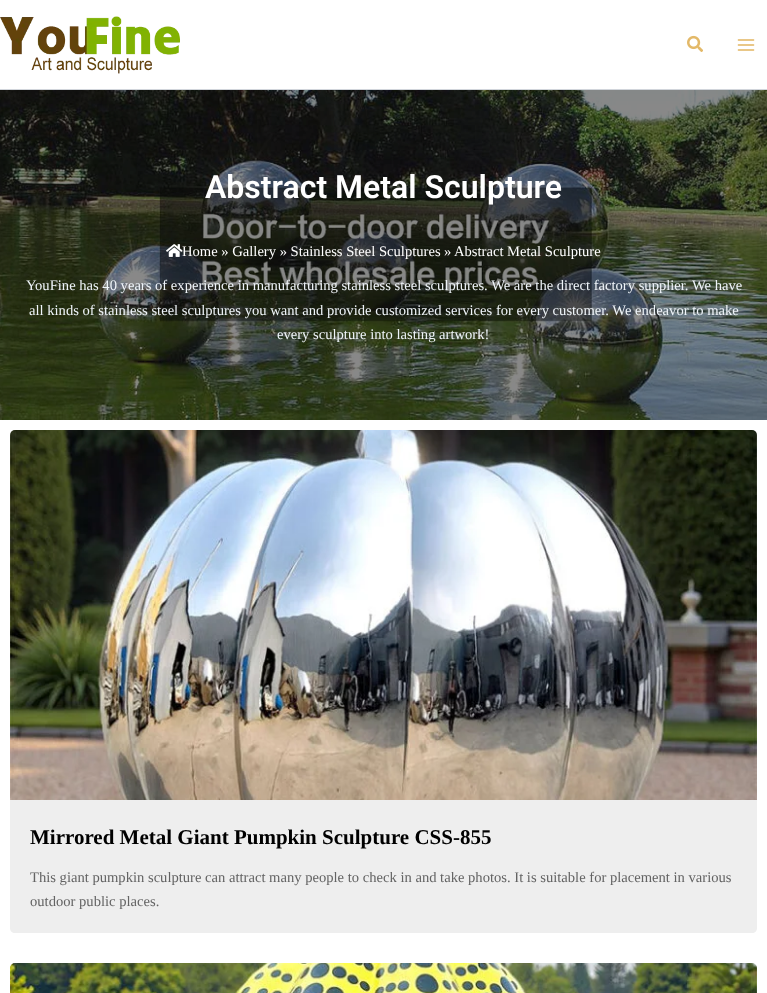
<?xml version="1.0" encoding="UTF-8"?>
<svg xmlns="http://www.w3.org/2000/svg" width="767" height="993">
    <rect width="100%" height="100%" fill="#FFFFFF"/>
    <rect x="0" y="89" width="767" height="1" fill="#D1D5DB"/>
    <image x="0" y="16" width="180" height="58" href="img_01.png"/>
    <image x="687" y="35" width="16" height="17" href="img_02.png"/>
    <image x="737" y="39" width="18" height="12" href="img_03.png"/>
    <image x="0" y="90" width="767" height="330" href="img_04.png"/>
    <text x="205" y="198" font-family="Roboto" font-size="32" font-weight="600" fill="#FFFFFF">Abstract Metal Sculpture</text>
    <image x="166" y="244" width="17" height="13" href="img_05.png"/>
    <text x="182" y="256" font-family="Liberation Serif" font-size="14.6" fill="#FFFFFF">Home » Gallery » Stainless Steel Sculptures</text>
    <text x="444" y="256" font-family="Liberation Serif" font-size="14.6" fill="#FFFFFF">»</text>
    <text x="454" y="256" font-family="Liberation Serif" font-size="14.6" fill="#FFFFFF">Abstract Metal Sculpture</text>
    <text x="26" y="290" font-family="Liberation Serif" font-size="14.6" fill="#F0F5FA">YouFine has 40 years of experience in manufacturing stainless steel sculptures. We are the direct factory supplier. We have</text>
    <text x="29" y="315" font-family="Liberation Serif" font-size="14.6" fill="#F0F5FA">all kinds of stainless steel sculptures you want and provide customized services for every customer. We endeavor to make</text>
    <text x="277" y="339" font-family="Liberation Serif" font-size="14.6" fill="#F0F5FA">every sculpture into lasting artwork!</text>
    <image x="10" y="430" width="747" height="370" href="img_06.png"/>
    <path d="M 10 800 H 757 V 928 C 757 931 755 933 752 933 H 15 C 12 933 10 931 10 928 Z" fill="#EEEEEE"/>
    <text x="30" y="844" font-family="Liberation Serif" font-size="21" font-weight="700" fill="#000000">Mirrored Metal Giant Pumpkin Sculpture CSS-855</text>
    <text font-family="Liberation Serif" font-size="14.6" fill="#636363">
        <tspan x="30" y="882">This giant pumpkin sculpture can attract many people to check in and take photos. It is suitable for placement in various</tspan>
        <tspan x="30" y="906">outdoor public places.</tspan>
    </text>
    <image x="10" y="963" width="747" height="30" href="img_07.png"/>
</svg>
